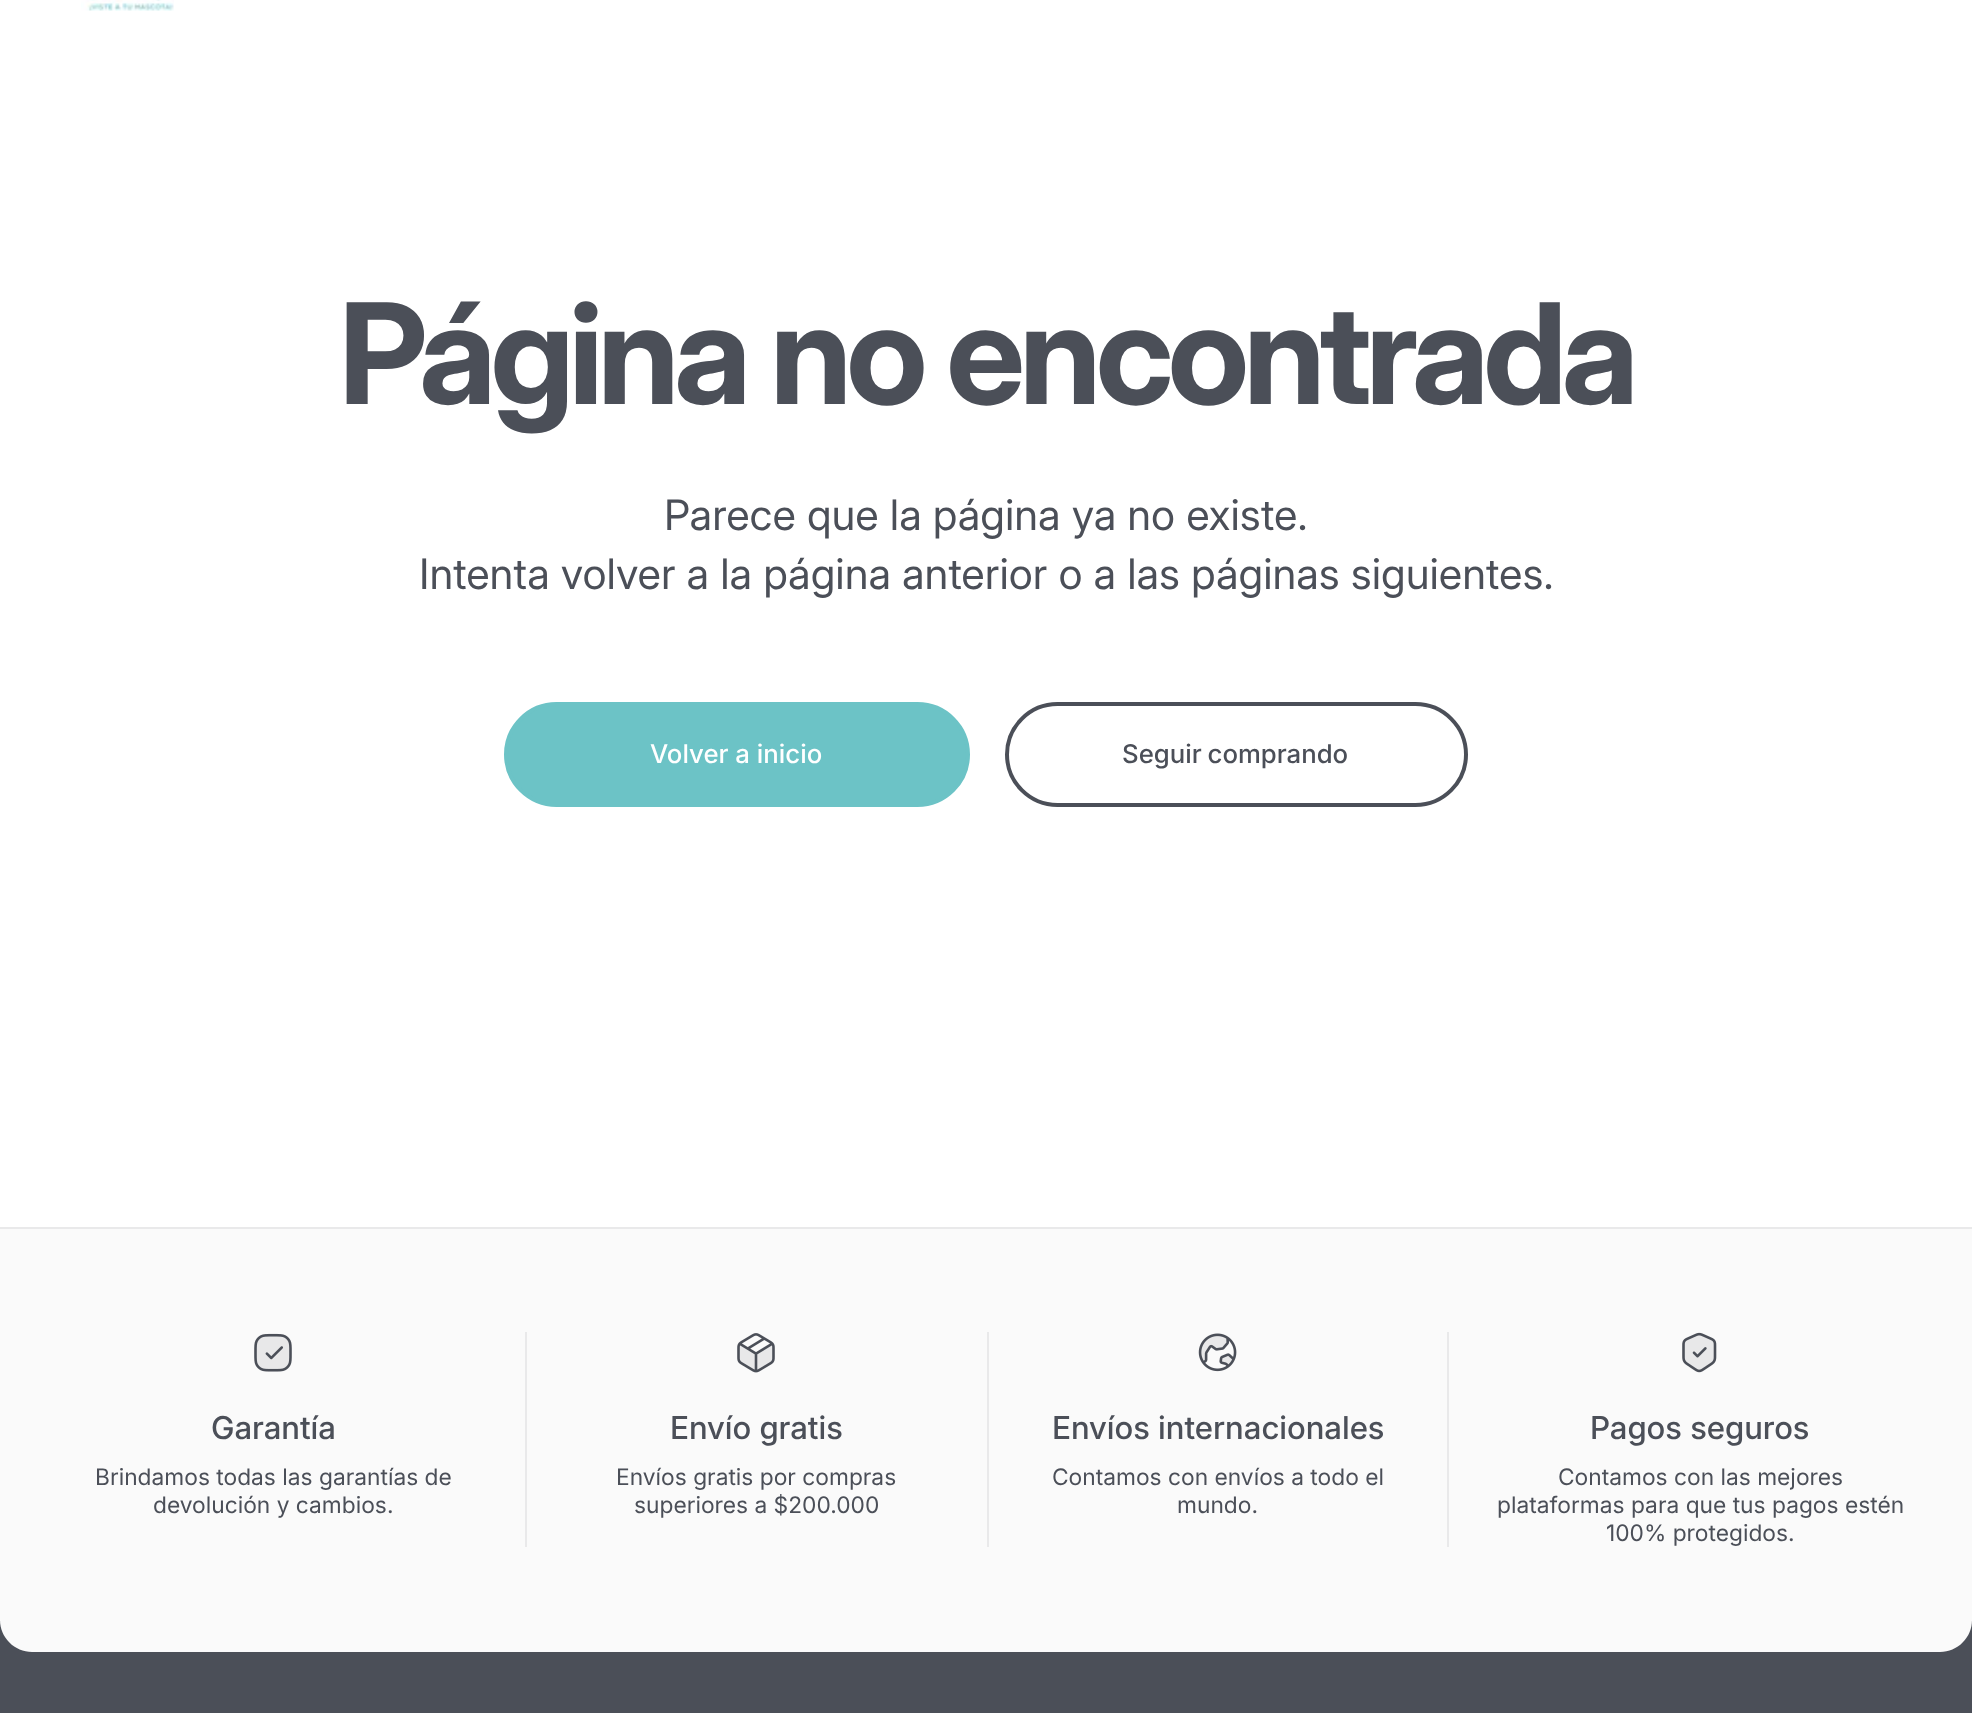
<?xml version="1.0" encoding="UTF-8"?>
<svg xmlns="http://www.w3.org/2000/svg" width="1972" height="1713">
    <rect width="100%" height="100%" fill="#FFFFFF"/>
    <image x="81" y="0" width="93" height="11" href="img_01.png"/>
    <text x="339" y="404" font-family="Inter" font-size="140" font-weight="700" letter-spacing="-5.6" fill="#4B4F58">Página no encontrada</text>
    <text x="664" y="530" font-family="'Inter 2'" font-size="42" fill="#4B4F58">Parece que la página ya no existe.</text>
    <text x="419" y="589" font-family="'Inter 2'" font-size="42" fill="#4B4F58">Intenta volver a la página anterior o a las páginas siguientes.</text>
    <rect x="506" y="704" width="462" height="101" rx="50.5" fill="#6CC3C6" stroke="#6CC3C6" stroke-width="4"/>
    <text x="650" y="763" font-family="'Inter 2'" font-size="25.75" font-weight="500" fill="#FFFFFF">Volver a inicio</text>
    <rect x="1007" y="704" width="459" height="101" rx="50.5" fill="none" stroke="#4B4F58" stroke-width="4"/>
    <text x="1122" y="763" word-spacing="-1" font-family="'Inter 2'" font-size="25.75" font-weight="500" fill="#4B4F58">Seguir comprando</text>
    <rect x="0" y="1621" width="1972" height="92" fill="#4B4F58"/>
    <path d="M 0 1227 H 1972 V 1620 C 1972 1637.5 1957.5 1652 1940 1652 H 32 C 14.5 1652 0 1637.5 0 1620 Z" fill="#FAFAFA"/>
    <rect x="0" y="1227" width="1972" height="2" fill="#E9E9EA"/>
    <image x="254" y="1333" width="38" height="39" href="img_02.png"/>
    <text x="211" y="1439" font-family="Inter" font-size="31.5" font-weight="500" fill="#4B4F58">Garantía</text>
    <text x="95" y="1485" font-family="Inter" font-size="22.75" fill="#4B4F58">Brindamos todas las garantías de</text>
    <text x="153" y="1513" font-family="Inter" font-size="22.75" fill="#4B4F58">devolución y cambios.</text>
    <rect x="525" y="1332" width="2" height="215" fill="#E9E9EA"/>
    <image x="737" y="1333" width="38" height="40" href="img_03.png"/>
    <text x="670" y="1439" font-family="Inter" font-size="31.5" font-weight="500" fill="#4B4F58">Envío gratis</text>
    <text x="616" y="1485" font-family="Inter" font-size="22.75" fill="#4B4F58">Envíos gratis por compras</text>
    <text x="634" y="1513" font-family="Inter" font-size="22.75" fill="#4B4F58">superiores a $200.000</text>
    <rect x="987" y="1332" width="2" height="215" fill="#E9E9EA"/>
    <image x="1198" y="1333" width="39" height="39" href="img_04.png"/>
    <text x="1052" y="1439" font-family="Inter" font-size="31.5" font-weight="500" fill="#4B4F58">Envíos internacionales</text>
    <text x="1052" y="1485" font-family="Inter" font-size="22.75" fill="#4B4F58">Contamos con envíos a todo el</text>
    <text x="1177" y="1513" font-family="Inter" font-size="22.75" fill="#4B4F58">mundo.</text>
    <rect x="1447" y="1332" width="2" height="215" fill="#E9E9EA"/>
    <image x="1682" y="1332" width="35" height="41" href="img_05.png"/>
    <text x="1590" y="1439" font-family="Inter" font-size="31.5" font-weight="500" fill="#4B4F58">Pagos seguros</text>
    <text x="1558" y="1485" font-family="Inter" font-size="22.75" fill="#4B4F58">Contamos con las mejores</text>
    <text x="1497" y="1513" font-family="Inter" font-size="22.75" fill="#4B4F58">plataformas para que tus pagos estén</text>
    <text x="1606" y="1541" font-family="Inter" font-size="22.75" fill="#4B4F58">100% protegidos.</text>
</svg>
